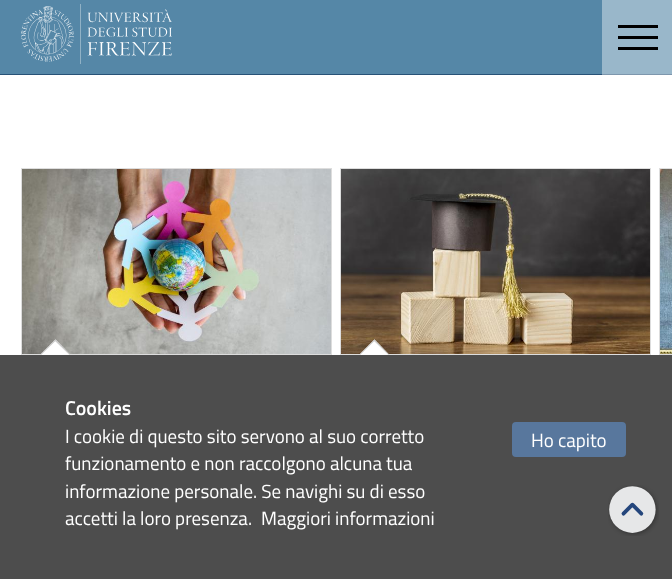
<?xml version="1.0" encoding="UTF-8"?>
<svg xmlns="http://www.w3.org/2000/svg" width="672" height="579">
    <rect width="100%" height="100%" fill="#FFFFFF"/>
    <rect x="0" y="0" width="672" height="74" fill="#5587A7"/>
    <rect x="0" y="74" width="672" height="1" fill="#285277"/>
    <image x="21" y="4" width="151" height="60" href="img_01.png"/>
    <rect x="602" y="0" width="70" height="75" fill="#FFFFFF" fill-opacity="0.4"/>
    <rect x="618" y="25" width="40" height="3" fill="#000000"/>
    <rect x="618" y="36" width="40" height="3" fill="#000000"/>
    <rect x="618" y="47" width="40" height="3" fill="#000000"/>
    <rect x="21.5" y="168.5" width="310" height="186" fill="none" stroke="#DDDDDD"/>
    <image x="22" y="169" width="309" height="185" href="img_02.png"/>
    <path d="M 40.5 354.5 L 55.5 339.5 L 70 354.5 L 55.5 369.5 Z" fill="#FFFFFF"/>
    <path d="M 40.5 354.5 L 55.5 339.5 L 56 340.5 L 41 355 Z" fill="#CCCCCC"/>
    <path d="M 54.5 340.5 L 55.5 339.5 L 70 354.5 L 69.5 355 Z" fill="#CCCCCC"/>
    <rect x="340.5" y="168.5" width="310" height="186" fill="none" stroke="#DDDDDD"/>
    <image x="341" y="169" width="309" height="185" href="img_03.png"/>
    <path d="M 359.5 354.5 L 374.5 339.5 L 389 354.5 L 374.5 369.5 Z" fill="#FFFFFF"/>
    <path d="M 359.5 354.5 L 374.5 339.5 L 375 340.5 L 360 355 Z" fill="#CCCCCC"/>
    <path d="M 373.5 340.5 L 374.5 339.5 L 389 354.5 L 388.5 355 Z" fill="#CCCCCC"/>
    <rect x="659.5" y="168.5" width="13" height="186" fill="none" stroke="#DDDDDD"/>
    <image x="660" y="169" width="12" height="185" href="img_04.png"/>
    <rect x="0" y="355" width="672" height="224" fill="#4D4D4D"/>
    <text x="65" y="415" font-family="Titillium Web" font-size="20" font-weight="600" fill="#FFFFFF">Cookies</text>
    <text font-family="Titillium Web" font-size="19" fill="#FFFFFF">
        <tspan x="65" y="443">I cookie di questo sito servono al suo corretto</tspan>
        <tspan x="65" y="470">funzionamento e non raccolgono alcuna tua</tspan>
        <tspan x="65" y="498">informazione personale. Se navighi su di esso</tspan>
        <tspan x="65" y="525">accetti la loro presenza.</tspan>
    </text>
    <text x="261" y="525" font-family="Titillium Web" font-size="19" fill="#FFFFFF">Maggiori informazioni</text>
    <rect x="512" y="422" width="114" height="35" rx="4" fill="#58779D"/>
    <text x="531" y="447" font-family="Titillium Web" font-size="19" fill="#FFFFFF">Ho capito</text>
    <image x="608" y="485" width="51" height="51" href="img_05.png"/>
</svg>
